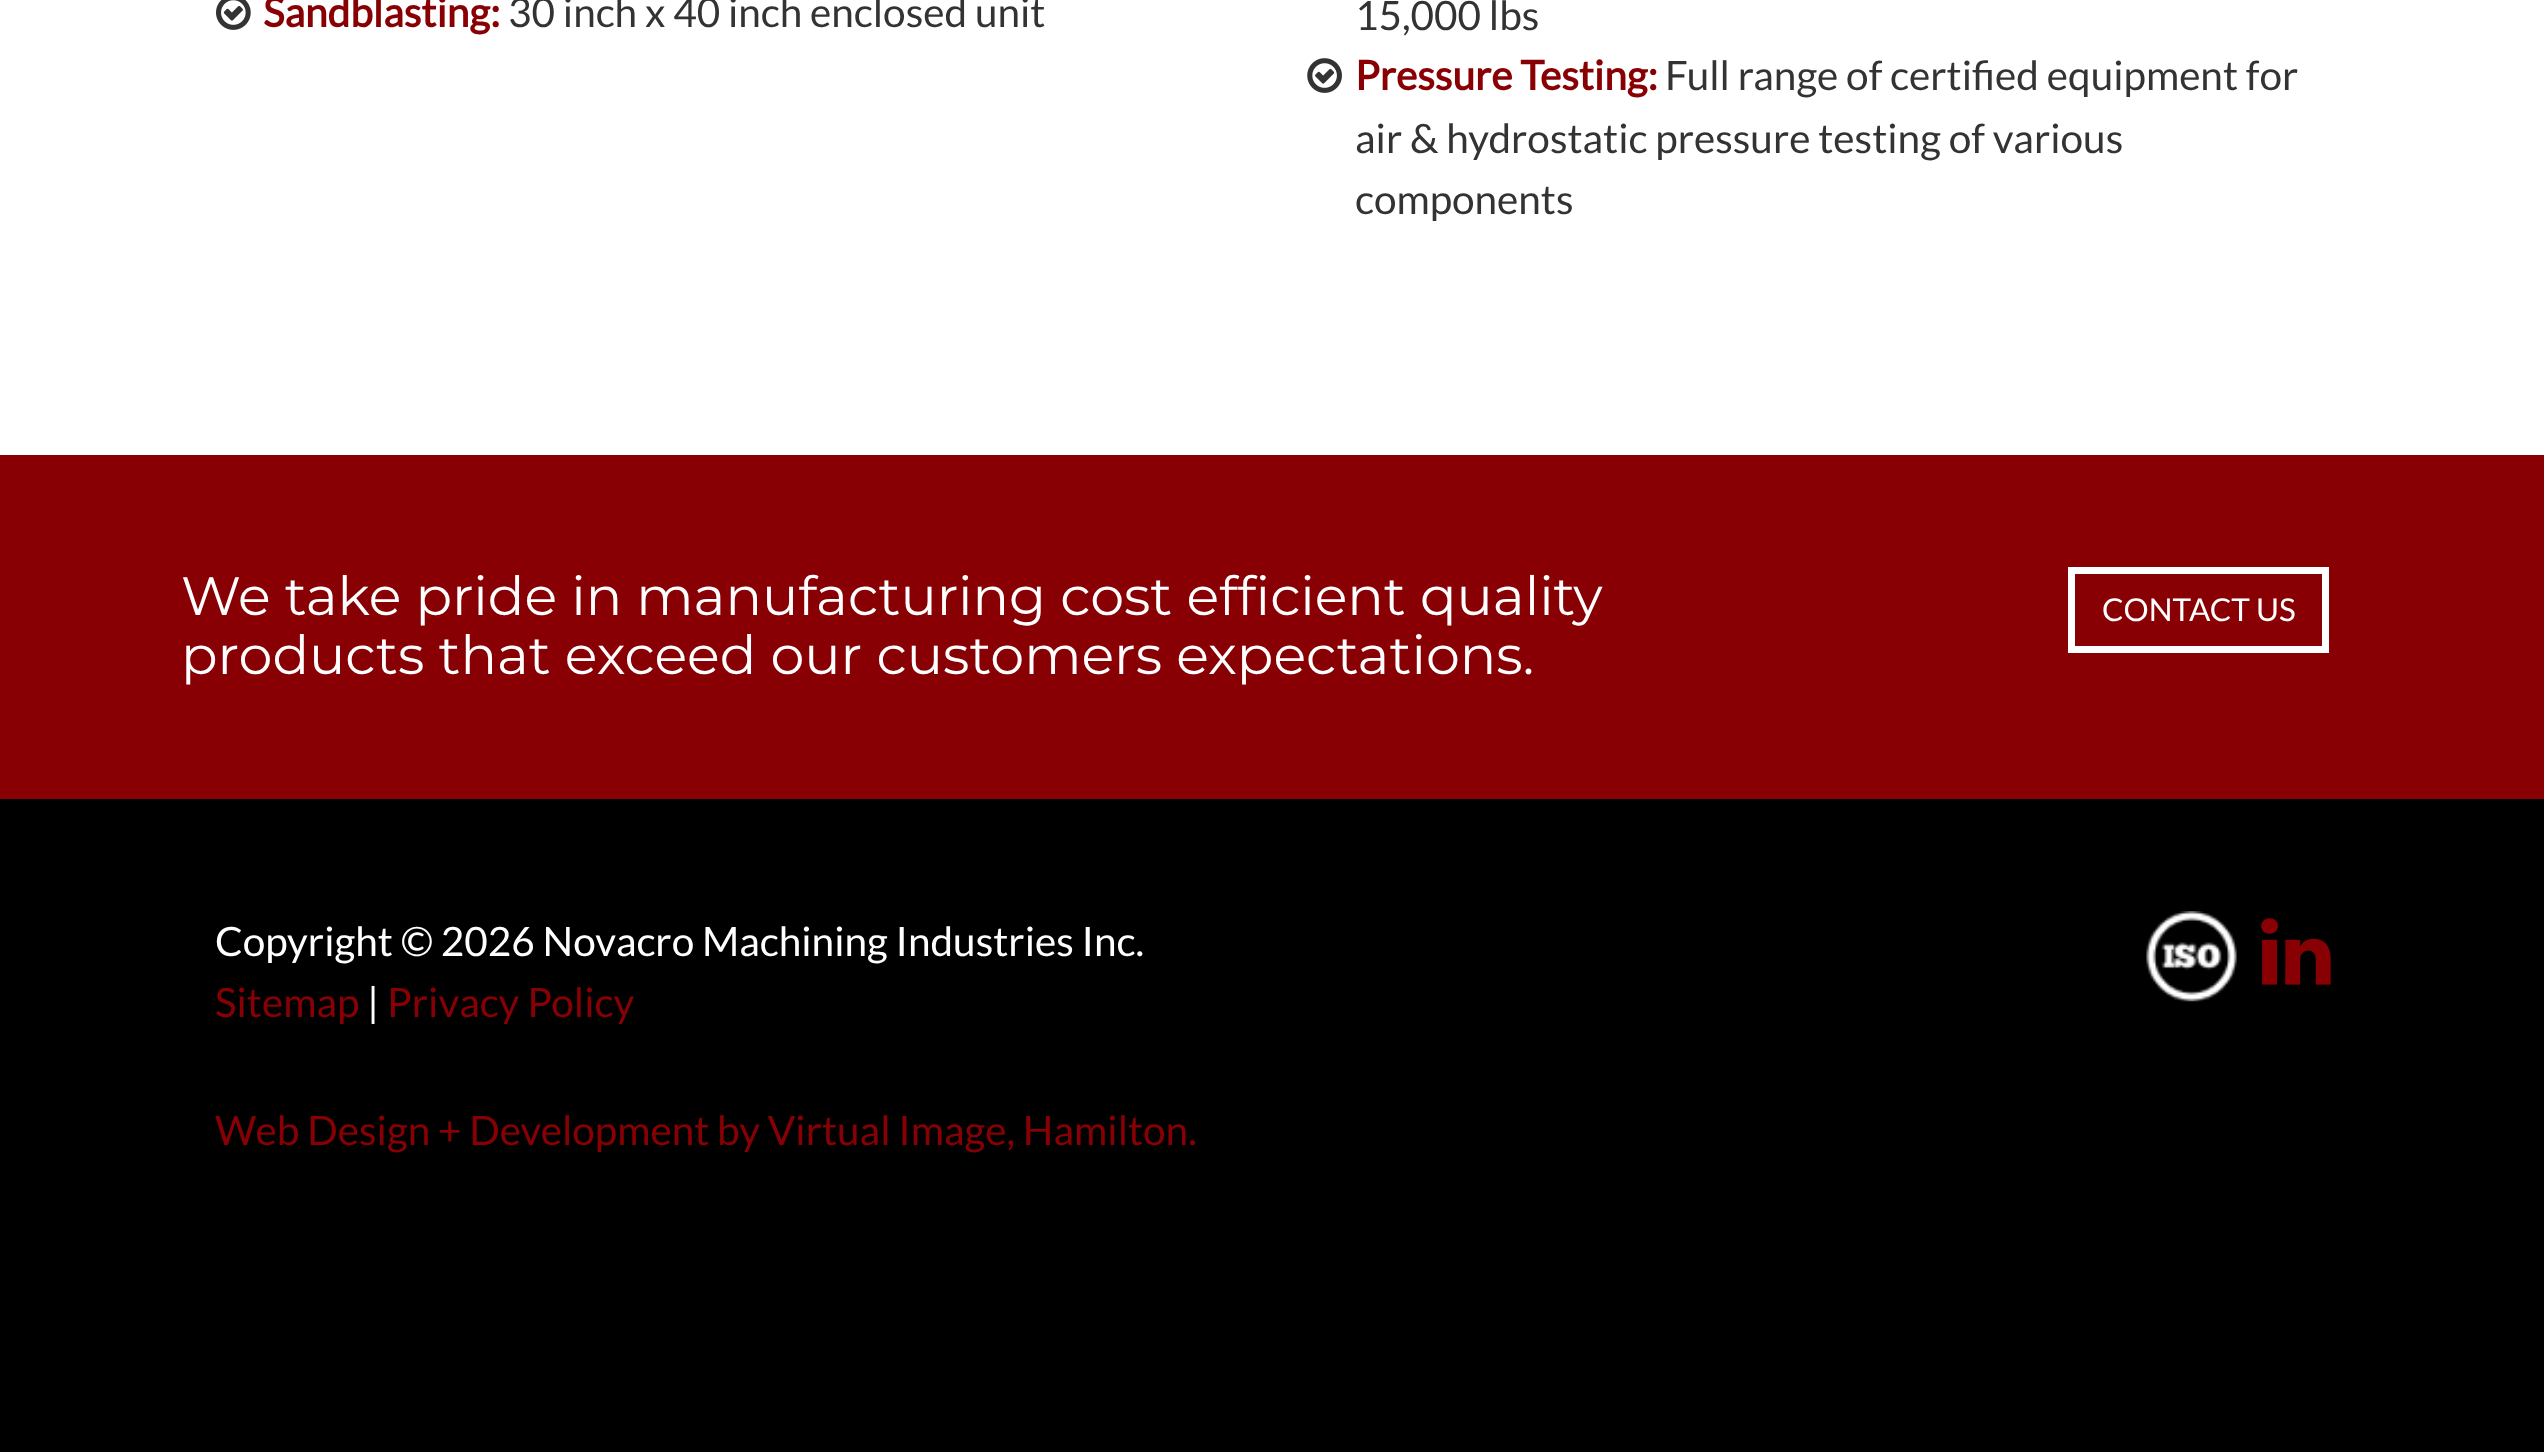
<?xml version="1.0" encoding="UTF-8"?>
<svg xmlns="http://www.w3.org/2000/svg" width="2544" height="1452">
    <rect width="100%" height="100%" fill="#FFFFFF"/>
    <image x="216" y="0" width="35" height="30" href="img_01.png"/>
    <text x="263" y="27" font-family="Lato" font-size="40.5" font-weight="700" fill="#880004">Sandblasting:</text>
    <text x="508" y="27" font-family="Lato" font-size="40.5" fill="#333333">30 inch x 40 inch enclosed unit</text>
    <text x="1355" y="30" font-family="Lato" font-size="40.5" fill="#333333">15,000 lbs</text>
    <image x="1307" y="58" width="35" height="35" href="img_02.png"/>
    <text x="1355" y="90" font-family="Lato" font-size="40.5" font-weight="700" fill="#880004">Pressure Testing:</text>
    <text x="1665" y="90" font-family="Lato" font-size="40.5" fill="#333333">Full range of certified equipment for</text>
    <text font-family="Lato" font-size="40.5" fill="#333333">
        <tspan x="1355" y="153">air &amp; hydrostatic pressure testing of various</tspan>
        <tspan x="1355" y="214">components</tspan>
    </text>
    <rect x="0" y="455" width="2544" height="344" fill="#880004"/>
    <text font-family="Montserrat" font-size="54" font-weight="100" fill="#FFFFFF">
        <tspan x="181" y="615">We take pride in manufacturing cost efficient quality</tspan>
        <tspan x="181" y="674">products that exceed our customers expectations.</tspan>
    </text>
    <rect x="2071.5" y="570.5" width="254" height="79" fill="none" stroke="#FFFFFF" stroke-width="7"/>
    <text x="2102" y="621" font-family="Lato" font-size="31.5" fill="#FFFFFF">CONTACT US</text>
    <rect x="0" y="799" width="2544" height="653" fill="#000000"/>
    <text x="215" y="956" font-family="Lato" font-size="40.5" fill="#FFFFFF">Copyright © 2026 Novacro Machining Industries Inc.</text>
    <text x="215" y="1017" font-family="Lato" font-size="40.5" fill="#880004">Sitemap</text>
    <text x="367" y="1017" font-family="Lato" font-size="40.5" fill="#FFFFFF">|</text>
    <text x="387" y="1017" font-family="Lato" font-size="40.5" fill="#880004">Privacy Policy</text>
    <text x="215" y="1145" font-family="Lato" font-size="40.5" fill="#880004">Web Design + Development by Virtual Image, Hamilton.</text>
    <image x="2146" y="911" width="91" height="91" href="img_03.png"/>
    <image x="2261" y="918" width="70" height="67" href="img_04.png"/>
</svg>
